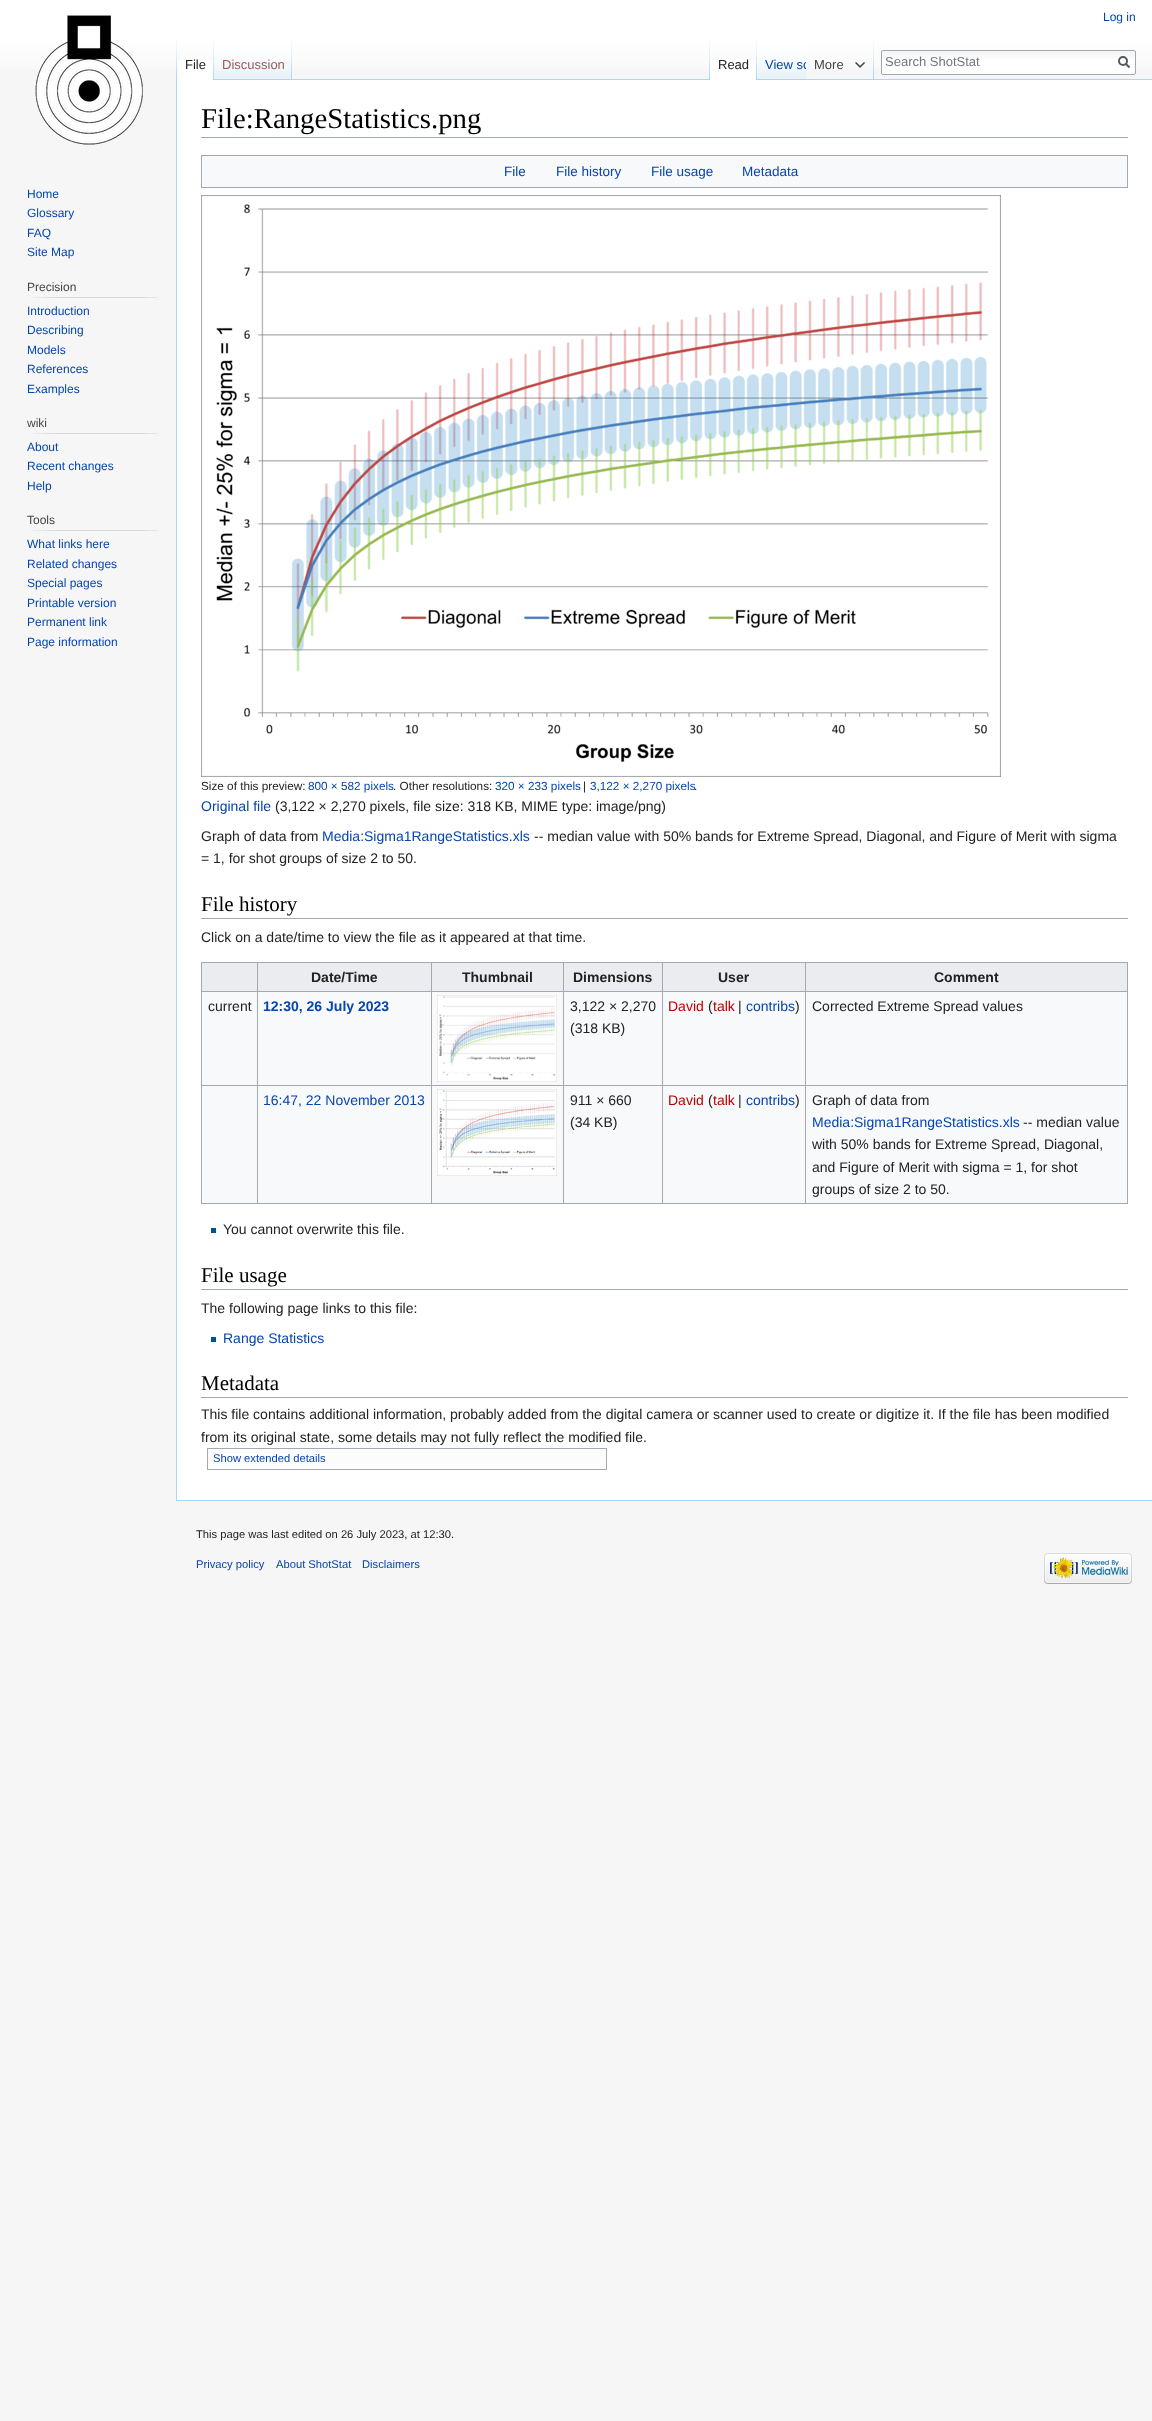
<?xml version="1.0" encoding="UTF-8"?>
<svg xmlns="http://www.w3.org/2000/svg" width="1152" height="2421">
    <defs>
        <linearGradient id="g1" gradientUnits="userSpaceOnUse" x1="576" y1="0" x2="576" y2="80"><stop offset="0.5" stop-color="#FFFFFF"/><stop offset="1" stop-color="#F6F6F6"/></linearGradient>
        <clipPath id="clip1"><rect x="757" y="40" width="49" height="40"/></clipPath>
    </defs>
    <rect width="100%" height="100%" fill="#F6F6F6"/>
    <rect x="0" y="0" width="1152" height="69" fill="url(#g1)"/>
    <text x="1103" y="21" font-family="Liberation Sans" font-size="12" fill="#0645AD">Log in</text>
    <image x="176" y="40" width="1" height="39" href="img_01.png"/>
    <rect x="177" y="60" width="36" height="20" fill="#FFFFFF"/>
    <image x="213" y="40" width="1" height="40" href="img_02.png"/>
    <text x="185" y="69" font-family="Liberation Sans" font-size="13" fill="#222222">File</text>
    <image x="214" y="40" width="77" height="39" href="img_03.png"/>
    <image x="291" y="40" width="1" height="39" href="img_01.png"/>
    <text x="222" y="69" font-family="Liberation Sans" font-size="13" fill="#A55858">Discussion</text>
    <image x="709" y="40" width="1" height="39" href="img_01.png"/>
    <rect x="214" y="79" width="938" height="1" fill="#A7D7F9"/>
    <rect x="710" y="60" width="46" height="20" fill="#FFFFFF"/>
    <image x="756" y="40" width="1" height="40" href="img_02.png"/>
    <text x="718" y="69" font-family="Liberation Sans" font-size="13" fill="#222222">Read</text>
    <image x="757" y="40" width="49" height="39" href="img_04.png"/>
    <g clip-path="url(#clip1)">
        <text x="765" y="69" font-family="Liberation Sans" font-size="13" fill="#0645AD">View so</text>
    </g>
    <image x="873" y="40" width="1" height="39" href="img_01.png"/>
    <text x="814" y="69" font-family="Liberation Sans" font-size="13" fill="#444444">More</text>
    <image x="855" y="62" width="10" height="6" href="img_05.png"/>
    <rect x="881" y="50" width="255" height="25" rx="2" fill="#FFFFFF"/>
    <image x="881" y="51" width="255" height="8" href="img_06.png"/>
    <rect x="881.5" y="50.5" width="254" height="24" rx="1.5" fill="none" stroke="#A2A9B1"/>
    <text x="885" y="66" font-family="Liberation Sans" font-size="13" fill="#72777D">Search ShotStat</text>
    <path d="M 1129.5 67.5 L 1125.5 63.5" fill="none" stroke="#54595D" stroke-width="2"/>
    <circle cx="1123" cy="61" r="4" fill="none" stroke="#54595D" stroke-width="2"/>
    <image x="35" y="15" width="108" height="130" href="img_07.png"/>
    <text font-family="Liberation Sans" font-size="12" fill="#0645AD">
        <tspan x="27" y="198">Home</tspan>
        <tspan x="27" y="217">Glossary</tspan>
        <tspan x="27" y="237">FAQ</tspan>
        <tspan x="27" y="256">Site Map</tspan>
    </text>
    <text x="27" y="291" font-family="Liberation Sans" font-size="12" fill="#444444">Precision</text>
    <image x="30" y="297" width="128" height="1" href="img_08.png"/>
    <text font-family="Liberation Sans" font-size="12" fill="#0645AD">
        <tspan x="27" y="315">Introduction</tspan>
        <tspan x="27" y="334">Describing</tspan>
        <tspan x="27" y="354">Models</tspan>
        <tspan x="27" y="373">References</tspan>
        <tspan x="27" y="393">Examples</tspan>
    </text>
    <text x="27" y="427" font-family="Liberation Sans" font-size="12" fill="#444444">wiki</text>
    <image x="30" y="433" width="128" height="1" href="img_08.png"/>
    <text font-family="Liberation Sans" font-size="12" fill="#0645AD">
        <tspan x="27" y="451">About</tspan>
        <tspan x="27" y="470">Recent changes</tspan>
        <tspan x="27" y="490">Help</tspan>
    </text>
    <text x="27" y="524" font-family="Liberation Sans" font-size="12" fill="#444444">Tools</text>
    <image x="30" y="530" width="128" height="1" href="img_08.png"/>
    <text font-family="Liberation Sans" font-size="12" fill="#0645AD">
        <tspan x="27" y="548">What links here</tspan>
        <tspan x="27" y="568">Related changes</tspan>
        <tspan x="27" y="587">Special pages</tspan>
        <tspan x="27" y="607">Printable version</tspan>
        <tspan x="27" y="626">Permanent link</tspan>
        <tspan x="27" y="646">Page information</tspan>
    </text>
    <rect x="177" y="80" width="975" height="1420" fill="#FFFFFF"/>
    <rect x="176" y="1500" width="976" height="1" fill="#A7D7F9"/>
    <rect x="176" y="79" width="1" height="1422" fill="#A7D7F9"/>
    <rect x="201" y="137" width="927" height="1" fill="#A2A9B1"/>
    <text x="201" y="128" font-family="Liberation Serif" font-size="28.75" fill="#000000">File:RangeStatistics.png</text>
    <rect x="201.5" y="155.5" width="926" height="32" fill="#F8F9FA" stroke="#A2A9B1"/>
    <text x="504" y="176" font-family="Liberation Sans" font-size="13.5" fill="#0645AD">File</text>
    <text x="556" y="176" font-family="Liberation Sans" font-size="13.5" fill="#0645AD">File history</text>
    <text x="651" y="176" font-family="Liberation Sans" font-size="13.5" fill="#0645AD">File usage</text>
    <text x="742" y="176" font-family="Liberation Sans" font-size="13.5" fill="#0645AD">Metadata</text>
    <image x="201" y="195" width="800" height="582" href="img_09.png"/>
    <text x="201" y="790" font-family="Liberation Sans" font-size="11.75" fill="#222222">Size of this preview:</text>
    <text x="308" y="790" font-family="Liberation Sans" font-size="11.75" fill="#0645AD">800 × 582 pixels</text>
    <text x="393" y="790" font-family="Liberation Sans" font-size="11.75" fill="#222222">. Other resolutions:</text>
    <text x="495" y="790" font-family="Liberation Sans" font-size="11.75" fill="#0645AD">320 × 233 pixels</text>
    <text x="583" y="790" font-family="Liberation Sans" font-size="11.75" fill="#222222">|</text>
    <text x="590" y="790" font-family="Liberation Sans" font-size="11.75" fill="#0645AD">3,122 × 2,270 pixels</text>
    <text x="694" y="790" font-family="Liberation Sans" font-size="11.75" fill="#222222">.</text>
    <text x="201" y="811" font-family="Liberation Sans" font-size="14" fill="#0645AD">Original file</text>
    <text x="275" y="811" font-family="Liberation Sans" font-size="14" fill="#222222">(3,122 × 2,270 pixels, file size: 318 KB, MIME type: image/png)</text>
    <text x="201" y="841" font-family="Liberation Sans" font-size="14" fill="#222222">Graph of data from</text>
    <text x="322" y="841" font-family="Liberation Sans" font-size="14" fill="#0645AD">Media:Sigma1RangeStatistics.xls</text>
    <text x="534" y="841" font-family="Liberation Sans" font-size="14" fill="#222222">-- median value with 50% bands for Extreme Spread, Diagonal, and Figure of Merit with sigma</text>
    <text x="201" y="863" font-family="Liberation Sans" font-size="14" fill="#222222">= 1, for shot groups of size 2 to 50.</text>
    <rect x="201" y="918" width="927" height="1" fill="#A2A9B1"/>
    <text x="201" y="911" font-family="Liberation Serif" font-size="21" fill="#000000">File history</text>
    <text x="201" y="942" font-family="Liberation Sans" font-size="14" fill="#222222">Click on a date/time to view the file as it appeared at that time.</text>
    <rect x="202" y="992" width="925" height="211" fill="#F8F9FA"/>
    <rect x="201" y="962" width="927" height="1" fill="#A2A9B1"/>
    <rect x="1127" y="962" width="1" height="242" fill="#A2A9B1"/>
    <rect x="201" y="1203" width="927" height="1" fill="#A2A9B1"/>
    <rect x="201" y="962" width="1" height="242" fill="#A2A9B1"/>
    <rect x="202" y="963" width="55" height="28" fill="#EAECF0"/>
    <rect x="258" y="963" width="173" height="28" fill="#EAECF0"/>
    <rect x="805" y="991" width="323" height="1" fill="#A2A9B1"/>
    <rect x="805" y="1085" width="323" height="1" fill="#A2A9B1"/>
    <rect x="805" y="1085" width="1" height="119" fill="#A2A9B1"/>
    <rect x="662" y="1085" width="144" height="1" fill="#A2A9B1"/>
    <rect x="805" y="991" width="1" height="95" fill="#A2A9B1"/>
    <rect x="662" y="991" width="144" height="1" fill="#A2A9B1"/>
    <rect x="662" y="1085" width="1" height="119" fill="#A2A9B1"/>
    <rect x="563" y="1085" width="100" height="1" fill="#A2A9B1"/>
    <rect x="662" y="991" width="1" height="95" fill="#A2A9B1"/>
    <rect x="563" y="991" width="100" height="1" fill="#A2A9B1"/>
    <rect x="563" y="1085" width="1" height="119" fill="#A2A9B1"/>
    <rect x="431" y="1085" width="133" height="1" fill="#A2A9B1"/>
    <rect x="563" y="991" width="1" height="95" fill="#A2A9B1"/>
    <rect x="431" y="991" width="133" height="1" fill="#A2A9B1"/>
    <rect x="431" y="1085" width="1" height="119" fill="#A2A9B1"/>
    <rect x="257" y="1085" width="175" height="1" fill="#A2A9B1"/>
    <rect x="431" y="991" width="1" height="95" fill="#A2A9B1"/>
    <rect x="257" y="991" width="175" height="1" fill="#A2A9B1"/>
    <rect x="257" y="1085" width="1" height="119" fill="#A2A9B1"/>
    <rect x="201" y="1085" width="57" height="1" fill="#A2A9B1"/>
    <rect x="257" y="991" width="1" height="95" fill="#A2A9B1"/>
    <rect x="201" y="991" width="57" height="1" fill="#A2A9B1"/>
    <rect x="257" y="962" width="1" height="30" fill="#A2A9B1"/>
    <text x="311" y="982" font-family="Liberation Sans" font-size="14" font-weight="700" fill="#222222">Date/Time</text>
    <rect x="432" y="963" width="131" height="28" fill="#EAECF0"/>
    <rect x="431" y="962" width="1" height="30" fill="#A2A9B1"/>
    <text x="462" y="982" font-family="Liberation Sans" font-size="14" font-weight="700" fill="#222222">Thumbnail</text>
    <rect x="564" y="963" width="98" height="28" fill="#EAECF0"/>
    <rect x="563" y="962" width="1" height="30" fill="#A2A9B1"/>
    <text x="573" y="982" font-family="Liberation Sans" font-size="14" font-weight="700" fill="#222222">Dimensions</text>
    <rect x="663" y="963" width="142" height="28" fill="#EAECF0"/>
    <rect x="662" y="962" width="1" height="30" fill="#A2A9B1"/>
    <text x="718" y="982" font-family="Liberation Sans" font-size="14" font-weight="700" fill="#222222">User</text>
    <rect x="806" y="963" width="321" height="28" fill="#EAECF0"/>
    <rect x="805" y="962" width="1" height="30" fill="#A2A9B1"/>
    <text x="934" y="982" font-family="Liberation Sans" font-size="14" font-weight="700" fill="#222222">Comment</text>
    <text x="208" y="1011" font-family="Liberation Sans" font-size="14" fill="#222222">current</text>
    <text x="263" y="1011" font-family="Liberation Sans" font-size="14" font-weight="700" fill="#0645AD">12:30, 26 July 2023</text>
    <image x="437" y="995" width="120" height="87" href="img_10.png"/>
    <text font-family="Liberation Sans" font-size="14" fill="#222222">
        <tspan x="570" y="1011">3,122 × 2,270</tspan>
        <tspan x="570" y="1033">(318 KB)</tspan>
    </text>
    <text x="668" y="1011" font-family="Liberation Sans" font-size="14" fill="#BA0000">David</text>
    <text x="708" y="1011" font-family="Liberation Sans" font-size="14" fill="#222222">(</text>
    <text x="713" y="1011" font-family="Liberation Sans" font-size="14" fill="#BA0000">talk</text>
    <text x="738" y="1011" font-family="Liberation Sans" font-size="14" fill="#222222">|</text>
    <text x="746" y="1011" font-family="Liberation Sans" font-size="14" fill="#0645AD">contribs</text>
    <text x="795" y="1011" font-family="Liberation Sans" font-size="14" fill="#222222">)</text>
    <text x="812" y="1011" font-family="Liberation Sans" font-size="14" fill="#222222">Corrected Extreme Spread values</text>
    <text x="263" y="1105" font-family="Liberation Sans" font-size="14" fill="#0645AD">16:47, 22 November 2013</text>
    <image x="437" y="1089" width="120" height="87" href="img_11.png"/>
    <text font-family="Liberation Sans" font-size="14" fill="#222222">
        <tspan x="570" y="1105">911 × 660</tspan>
        <tspan x="570" y="1127">(34 KB)</tspan>
    </text>
    <text x="668" y="1105" font-family="Liberation Sans" font-size="14" fill="#BA0000">David</text>
    <text x="708" y="1105" font-family="Liberation Sans" font-size="14" fill="#222222">(</text>
    <text x="713" y="1105" font-family="Liberation Sans" font-size="14" fill="#BA0000">talk</text>
    <text x="738" y="1105" font-family="Liberation Sans" font-size="14" fill="#222222">|</text>
    <text x="746" y="1105" font-family="Liberation Sans" font-size="14" fill="#0645AD">contribs</text>
    <text x="795" y="1105" font-family="Liberation Sans" font-size="14" fill="#222222">)</text>
    <text x="812" y="1105" font-family="Liberation Sans" font-size="14" fill="#222222">Graph of data from</text>
    <text x="812" y="1127" font-family="Liberation Sans" font-size="14" fill="#0645AD">Media:Sigma1RangeStatistics.xls</text>
    <text x="1023" y="1127" font-family="Liberation Sans" font-size="14" fill="#222222">-- median value</text>
    <text font-family="Liberation Sans" font-size="14" fill="#222222">
        <tspan x="812" y="1149">with 50% bands for Extreme Spread, Diagonal,</tspan>
        <tspan x="812" y="1172">and Figure of Merit with sigma = 1, for shot</tspan>
        <tspan x="812" y="1194">groups of size 2 to 50.</tspan>
    </text>
    <rect x="211" y="1228" width="5" height="5" fill="#00528C"/>
    <text x="223" y="1234" font-family="Liberation Sans" font-size="14" fill="#222222">You cannot overwrite this file.</text>
    <rect x="201" y="1289" width="927" height="1" fill="#A2A9B1"/>
    <text x="201" y="1282" font-family="Liberation Serif" font-size="21" fill="#000000">File usage</text>
    <text x="201" y="1313" font-family="Liberation Sans" font-size="14" fill="#222222">The following page links to this file:</text>
    <rect x="211" y="1337" width="5" height="5" fill="#00528C"/>
    <text x="223" y="1343" font-family="Liberation Sans" font-size="14" fill="#0645AD">Range Statistics</text>
    <rect x="201" y="1397" width="927" height="1" fill="#A2A9B1"/>
    <text x="201" y="1390" font-family="Liberation Serif" font-size="21" fill="#000000">Metadata</text>
    <text font-family="Liberation Sans" font-size="14" fill="#222222">
        <tspan x="201" y="1419">This file contains additional information, probably added from the digital camera or scanner used to create or digitize it. If the file has been modified</tspan>
        <tspan x="201" y="1442">from its original state, some details may not fully reflect the modified file.</tspan>
    </text>
    <rect x="208" y="1449" width="398" height="20" fill="#FCFCFC"/>
    <rect x="207" y="1448" width="400" height="1" fill="#A2A9B1"/>
    <rect x="606" y="1448" width="1" height="22" fill="#A2A9B1"/>
    <rect x="207" y="1469" width="400" height="1" fill="#A2A9B1"/>
    <rect x="207" y="1448" width="1" height="22" fill="#A2A9B1"/>
    <text x="213" y="1462" font-family="Liberation Sans" font-size="11.2" fill="#0645AD">Show extended details</text>
    <text x="196" y="1538" font-family="Liberation Sans" font-size="11.2" fill="#222222">This page was last edited on 26 July 2023, at 12:30.</text>
    <text x="196" y="1568" font-family="Liberation Sans" font-size="11.2" fill="#0645AD">Privacy policy</text>
    <text x="276" y="1568" font-family="Liberation Sans" font-size="11.2" fill="#0645AD">About ShotStat</text>
    <text x="362" y="1568" font-family="Liberation Sans" font-size="11.2" fill="#0645AD">Disclaimers</text>
    <image x="1044" y="1553" width="88" height="31" href="img_12.png"/>
</svg>
